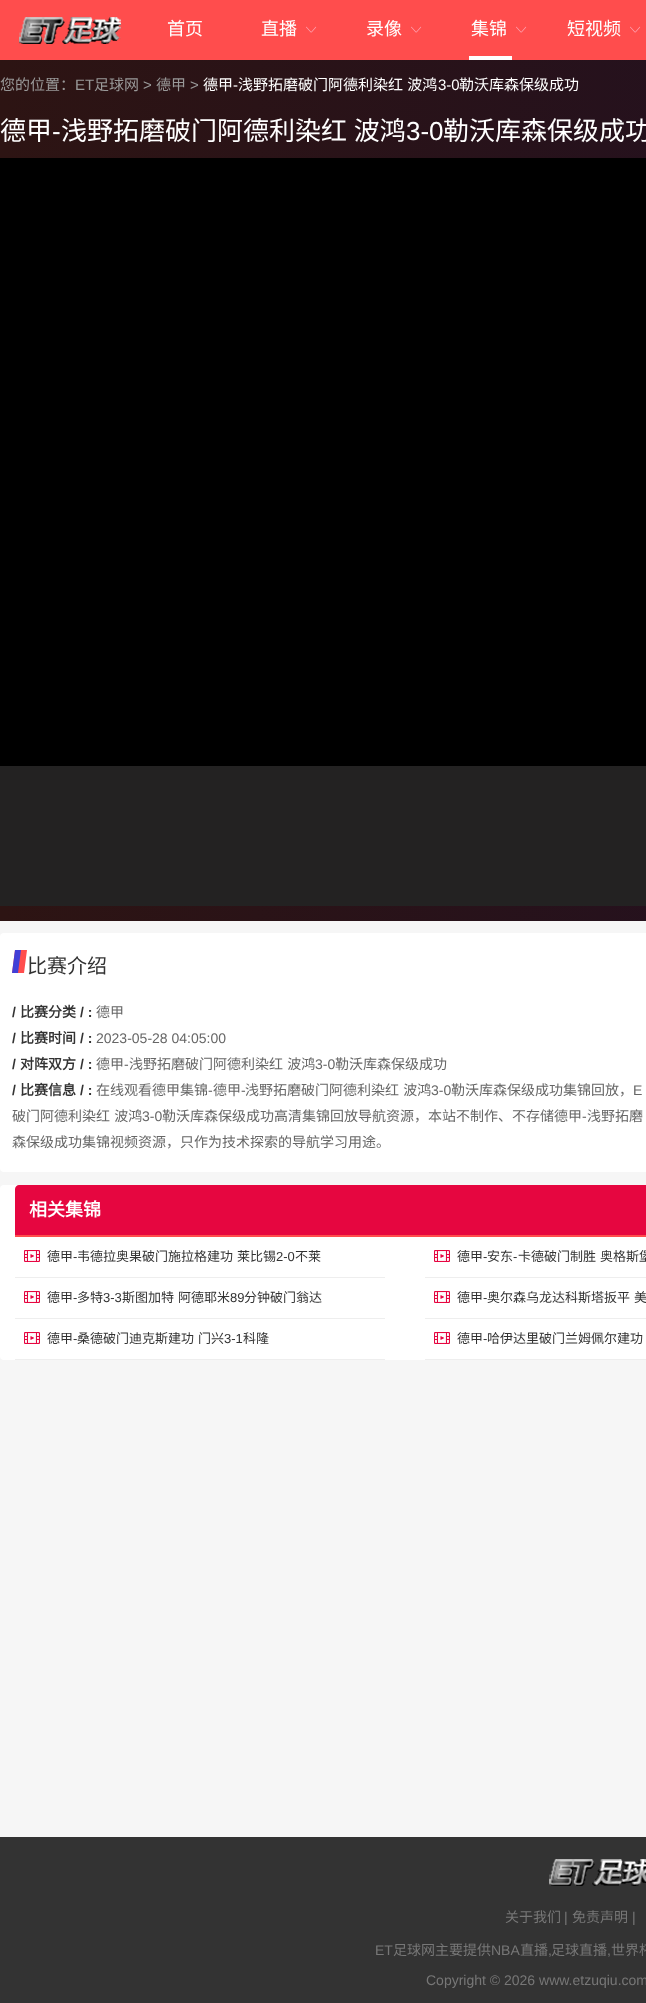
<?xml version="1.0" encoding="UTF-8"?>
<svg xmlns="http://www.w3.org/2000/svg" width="646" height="2003">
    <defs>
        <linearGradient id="g1" gradientUnits="userSpaceOnUse" x1="0" y1="491" x2="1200" y2="490"><stop offset="0" stop-color="#2D1413"/><stop offset="1" stop-color="#1F0F25"/></linearGradient>
    </defs>
    <rect width="100%" height="100%" fill="#F6F6F6"/>
    <rect x="0" y="0" width="646" height="60" fill="#FF4D4D"/>
    <image x="19" y="17" width="102" height="27" href="img_01.png"/>
    <text x="167" y="35" font-family="Noto Sans CJK SC" font-size="18" fill="#FFFFFF">首页</text>
    <text x="261" y="35" font-family="Noto Sans CJK SC" font-size="18" fill="#FFFFFF">直播</text>
    <image x="306" y="26" width="11" height="7" href="img_02.png"/>
    <text x="366" y="35" font-family="Noto Sans CJK SC" font-size="18" fill="#FFFFFF">录像</text>
    <image x="411" y="26" width="11" height="7" href="img_02.png"/>
    <text x="471" y="35" font-family="Noto Sans CJK SC" font-size="18" fill="#FFFFFF">集锦</text>
    <image x="516" y="26" width="11" height="7" href="img_02.png"/>
    <rect x="469" y="56" width="43" height="4" fill="#FFFFFF"/>
    <text x="567" y="35" font-family="Noto Sans CJK SC" font-size="18" fill="#FFFFFF">短视频</text>
    <image x="630" y="26" width="11" height="7" href="img_02.png"/>
    <rect x="0" y="60" width="646" height="861" fill="url(#g1)"/>
    <text x="0" y="90" font-family="Noto Sans CJK SC" font-size="15" fill="#999999">您的位置：</text>
    <text x="75" y="90" font-family="Liberation Sans" font-size="15" fill="#999999">ET</text>
    <text x="94" y="90" font-family="Noto Sans CJK SC" font-size="15" fill="#999999">足球网</text>
    <text x="143" y="90" font-family="Liberation Sans" font-size="15" fill="#999999">&gt;</text>
    <text x="156" y="90" font-family="Noto Sans CJK SC" font-size="15" fill="#999999">德甲</text>
    <text x="190" y="90" font-family="Liberation Sans" font-size="15" fill="#999999">&gt;</text>
    <text x="203" y="90" font-family="Noto Sans CJK SC" font-size="15" fill="#FFFFFF">德甲</text>
    <text x="233" y="90" font-family="Liberation Sans" font-size="15" fill="#FFFFFF">-</text>
    <text x="238" y="90" word-spacing="1" font-family="Noto Sans CJK SC" font-size="15" fill="#FFFFFF">浅野拓磨破门阿德利染红 波鸿</text>
    <text x="438" y="90" font-family="Liberation Sans" font-size="15" fill="#FFFFFF">3-0</text>
    <text x="459" y="90" font-family="Noto Sans CJK SC" font-size="15" fill="#FFFFFF">勒沃库森保级成功</text>
    <text x="0" y="140" font-family="Noto Sans CJK SC" font-size="26" fill="#FFFFFF">德甲</text>
    <text x="52" y="140" font-family="Liberation Sans" font-size="26" fill="#FFFFFF">-</text>
    <text x="61" y="140" word-spacing="1" font-family="Noto Sans CJK SC" font-size="26" fill="#FFFFFF">浅野拓磨破门阿德利染红 波鸿</text>
    <text x="406" y="140" font-family="Liberation Sans" font-size="26" fill="#FFFFFF">3-0</text>
    <text x="443" y="140" font-family="Noto Sans CJK SC" font-size="26" fill="#FFFFFF">勒沃库森保级成功</text>
    <rect x="0" y="158" width="646" height="608" fill="#000000"/>
    <rect x="0" y="766" width="646" height="140" fill="#232222"/>
    <rect x="0" y="933" width="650" height="239" rx="4" fill="#FFFFFF"/>
    <image x="12" y="950" width="15" height="23" href="img_03.png"/>
    <text x="27" y="973" font-family="Noto Sans CJK SC" font-size="20" fill="#333333">比赛介绍</text>
    <text x="12" y="1017" font-family="Liberation Sans" font-size="14" font-weight="700" fill="#333333">/</text>
    <text x="20" y="1017" font-family="Noto Sans CJK SC" font-size="14" font-weight="700" fill="#333333">比赛分类</text>
    <text x="80" y="1017" font-family="Liberation Sans" font-size="14" font-weight="700" fill="#333333">/ :</text>
    <text x="96" y="1017" font-family="Noto Sans CJK SC" font-size="14" fill="#666666">德甲</text>
    <text x="12" y="1043" font-family="Liberation Sans" font-size="14" font-weight="700" fill="#333333">/</text>
    <text x="20" y="1043" font-family="Noto Sans CJK SC" font-size="14" font-weight="700" fill="#333333">比赛时间</text>
    <text x="80" y="1043" font-family="Liberation Sans" font-size="14" font-weight="700" fill="#333333">/ :</text>
    <text x="96" y="1043" font-family="Liberation Sans" font-size="14" fill="#666666">2023-05-28 04:05:00</text>
    <text x="12" y="1069" font-family="Liberation Sans" font-size="14" font-weight="700" fill="#333333">/</text>
    <text x="20" y="1069" font-family="Noto Sans CJK SC" font-size="14" font-weight="700" fill="#333333">对阵双方</text>
    <text x="80" y="1069" font-family="Liberation Sans" font-size="14" font-weight="700" fill="#333333">/ :</text>
    <text x="96" y="1069" font-family="Noto Sans CJK SC" font-size="14" fill="#666666">德甲</text>
    <text x="124" y="1069" font-family="Liberation Sans" font-size="14" fill="#666666">-</text>
    <text x="129" y="1069" word-spacing="1" font-family="Noto Sans CJK SC" font-size="14" fill="#666666">浅野拓磨破门阿德利染红 波鸿</text>
    <text x="315" y="1069" font-family="Liberation Sans" font-size="14" fill="#666666">3-0</text>
    <text x="335" y="1069" font-family="Noto Sans CJK SC" font-size="14" fill="#666666">勒沃库森保级成功</text>
    <text x="12" y="1095" font-family="Liberation Sans" font-size="14" font-weight="700" fill="#333333">/</text>
    <text x="20" y="1095" font-family="Noto Sans CJK SC" font-size="14" font-weight="700" fill="#333333">比赛信息</text>
    <text x="80" y="1095" font-family="Liberation Sans" font-size="14" font-weight="700" fill="#333333">/ :</text>
    <text x="96" y="1095" font-family="Noto Sans CJK SC" font-size="14" fill="#666666">在线观看德甲集锦</text>
    <text x="208" y="1095" font-family="Liberation Sans" font-size="14" fill="#666666">-</text>
    <text x="213" y="1095" font-family="Noto Sans CJK SC" font-size="14" fill="#666666">德甲</text>
    <text x="241" y="1095" font-family="Liberation Sans" font-size="14" fill="#666666">-</text>
    <text x="245" y="1095" word-spacing="1" font-family="Noto Sans CJK SC" font-size="14" fill="#666666">浅野拓磨破门阿德利染红 波鸿</text>
    <text x="431" y="1095" font-family="Liberation Sans" font-size="14" fill="#666666">3-0</text>
    <text x="451" y="1095" font-family="Noto Sans CJK SC" font-size="14" fill="#666666">勒沃库森保级成功集锦回放，</text>
    <text x="633" y="1095" font-family="Liberation Sans" font-size="14" fill="#666666">E</text>
    <text x="12" y="1121" word-spacing="1" font-family="Noto Sans CJK SC" font-size="14" fill="#666666">破门阿德利染红 波鸿</text>
    <text x="142" y="1121" font-family="Liberation Sans" font-size="14" fill="#666666">3-0</text>
    <text x="162" y="1121" font-family="Noto Sans CJK SC" font-size="14" fill="#666666">勒沃库森保级成功高清集锦回放导航资源，本站不制作、不存储德甲</text>
    <text x="582" y="1121" font-family="Liberation Sans" font-size="14" fill="#666666">-</text>
    <text x="587" y="1121" word-spacing="1" font-family="Noto Sans CJK SC" font-size="14" fill="#666666">浅野拓磨</text>
    <text x="12" y="1147" font-family="Noto Sans CJK SC" font-size="14" fill="#666666">森保级成功集锦视频资源，只作为技术探索的导航学习用途。</text>
    <rect x="0" y="1185" width="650" height="175" rx="4" fill="#FFFFFF"/>
    <path d="M 19 1185 H 646 C 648 1185 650 1187 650 1189 V 1237 H 15 V 1189 C 15 1187 17 1185 19 1185 Z" fill="#E60640"/>
    <rect x="15" y="1235" width="631" height="2" fill="#FF4D4D"/>
    <text x="29" y="1216" font-family="Noto Sans CJK SC" font-size="18" font-weight="700" fill="#FFFFFF">相关集锦</text>
    <rect x="15" y="1277" width="370" height="1" fill="#EEEEEE"/>
    <image x="24" y="1250" width="16" height="12" href="img_04.png"/>
    <text x="47" y="1261" font-family="Noto Sans CJK SC" font-size="13" fill="#333333">德甲</text>
    <text x="73" y="1261" font-family="Liberation Sans" font-size="13" fill="#333333">-</text>
    <text x="77" y="1261" word-spacing="1" font-family="Noto Sans CJK SC" font-size="13" fill="#333333">韦德拉奥果破门施拉格建功 莱比锡</text>
    <text x="276" y="1261" font-family="Liberation Sans" font-size="13" fill="#333333">2-0</text>
    <text x="295" y="1261" font-family="Noto Sans CJK SC" font-size="13" fill="#333333">不莱</text>
    <rect x="425" y="1277" width="221" height="1" fill="#EEEEEE"/>
    <image x="434" y="1250" width="16" height="12" href="img_04.png"/>
    <text x="457" y="1261" font-family="Noto Sans CJK SC" font-size="13" fill="#333333">德甲</text>
    <text x="483" y="1261" font-family="Liberation Sans" font-size="13" fill="#333333">-</text>
    <text x="487" y="1261" font-family="Noto Sans CJK SC" font-size="13" fill="#333333">安东</text>
    <text x="513" y="1261" font-family="Liberation Sans" font-size="13" fill="#333333">-</text>
    <text x="518" y="1261" word-spacing="1" font-family="Noto Sans CJK SC" font-size="13" fill="#333333">卡德破门制胜 奥格斯堡</text>
    <rect x="15" y="1318" width="370" height="1" fill="#EEEEEE"/>
    <image x="24" y="1291" width="16" height="12" href="img_04.png"/>
    <text x="47" y="1302" font-family="Noto Sans CJK SC" font-size="13" fill="#333333">德甲</text>
    <text x="73" y="1302" font-family="Liberation Sans" font-size="13" fill="#333333">-</text>
    <text x="77" y="1302" font-family="Noto Sans CJK SC" font-size="13" fill="#333333">多特</text>
    <text x="103" y="1302" font-family="Liberation Sans" font-size="13" fill="#333333">3-3</text>
    <text x="122" y="1302" word-spacing="1" font-family="Noto Sans CJK SC" font-size="13" fill="#333333">斯图加特 阿德耶米</text>
    <text x="230" y="1302" font-family="Liberation Sans" font-size="13" fill="#333333">89</text>
    <text x="244" y="1302" font-family="Noto Sans CJK SC" font-size="13" fill="#333333">分钟破门翁达</text>
    <rect x="425" y="1318" width="221" height="1" fill="#EEEEEE"/>
    <image x="434" y="1291" width="16" height="12" href="img_04.png"/>
    <text x="457" y="1302" font-family="Noto Sans CJK SC" font-size="13" fill="#333333">德甲</text>
    <text x="483" y="1302" font-family="Liberation Sans" font-size="13" fill="#333333">-</text>
    <text x="487" y="1302" word-spacing="1" font-family="Noto Sans CJK SC" font-size="13" fill="#333333">奥尔森乌龙达科斯塔扳平 美</text>
    <rect x="15" y="1359" width="370" height="1" fill="#EEEEEE"/>
    <image x="24" y="1332" width="16" height="12" href="img_04.png"/>
    <text x="47" y="1343" font-family="Noto Sans CJK SC" font-size="13" fill="#333333">德甲</text>
    <text x="73" y="1343" font-family="Liberation Sans" font-size="13" fill="#333333">-</text>
    <text x="77" y="1343" word-spacing="1" font-family="Noto Sans CJK SC" font-size="13" fill="#333333">桑德破门迪克斯建功 门兴</text>
    <text x="224" y="1343" font-family="Liberation Sans" font-size="13" fill="#333333">3-1</text>
    <text x="243" y="1343" font-family="Noto Sans CJK SC" font-size="13" fill="#333333">科隆</text>
    <rect x="425" y="1359" width="221" height="1" fill="#EEEEEE"/>
    <image x="434" y="1332" width="16" height="12" href="img_04.png"/>
    <text x="457" y="1343" font-family="Noto Sans CJK SC" font-size="13" fill="#333333">德甲</text>
    <text x="483" y="1343" font-family="Liberation Sans" font-size="13" fill="#333333">-</text>
    <text x="487" y="1343" word-spacing="1" font-family="Noto Sans CJK SC" font-size="13" fill="#333333">哈伊达里破门兰姆佩尔建功</text>
    <rect x="0" y="1837" width="646" height="166" fill="#333333"/>
    <image x="549" y="1859" width="97" height="27" href="img_05.png"/>
    <text x="505" y="1922" font-family="Noto Sans CJK SC" font-size="14" fill="#777777">关于我们</text>
    <text x="564" y="1922" font-family="Liberation Sans" font-size="14" fill="#777777">|</text>
    <text x="572" y="1922" font-family="Noto Sans CJK SC" font-size="14" fill="#777777">免责声明</text>
    <text x="632" y="1922" font-family="Liberation Sans" font-size="14" fill="#777777">|</text>
    <text x="375" y="1955" font-family="Liberation Sans" font-size="14" fill="#777777">ET</text>
    <text x="393" y="1955" font-family="Noto Sans CJK SC" font-size="14" fill="#777777">足球网主要提供</text>
    <text x="491" y="1955" font-family="Liberation Sans" font-size="14" fill="#777777">NBA</text>
    <text x="520" y="1955" font-family="Noto Sans CJK SC" font-size="14" fill="#777777">直播</text>
    <text x="548" y="1955" font-family="Liberation Sans" font-size="14" fill="#777777">,</text>
    <text x="551" y="1955" font-family="Noto Sans CJK SC" font-size="14" fill="#777777">足球直播</text>
    <text x="607" y="1955" font-family="Liberation Sans" font-size="14" fill="#777777">,</text>
    <text x="611" y="1955" font-family="Noto Sans CJK SC" font-size="14" fill="#777777">世界杯</text>
    <text x="426" y="1985" font-family="Liberation Sans" font-size="14" fill="#777777">Copyright © 2026 www.etzuqiu.com</text>
</svg>
